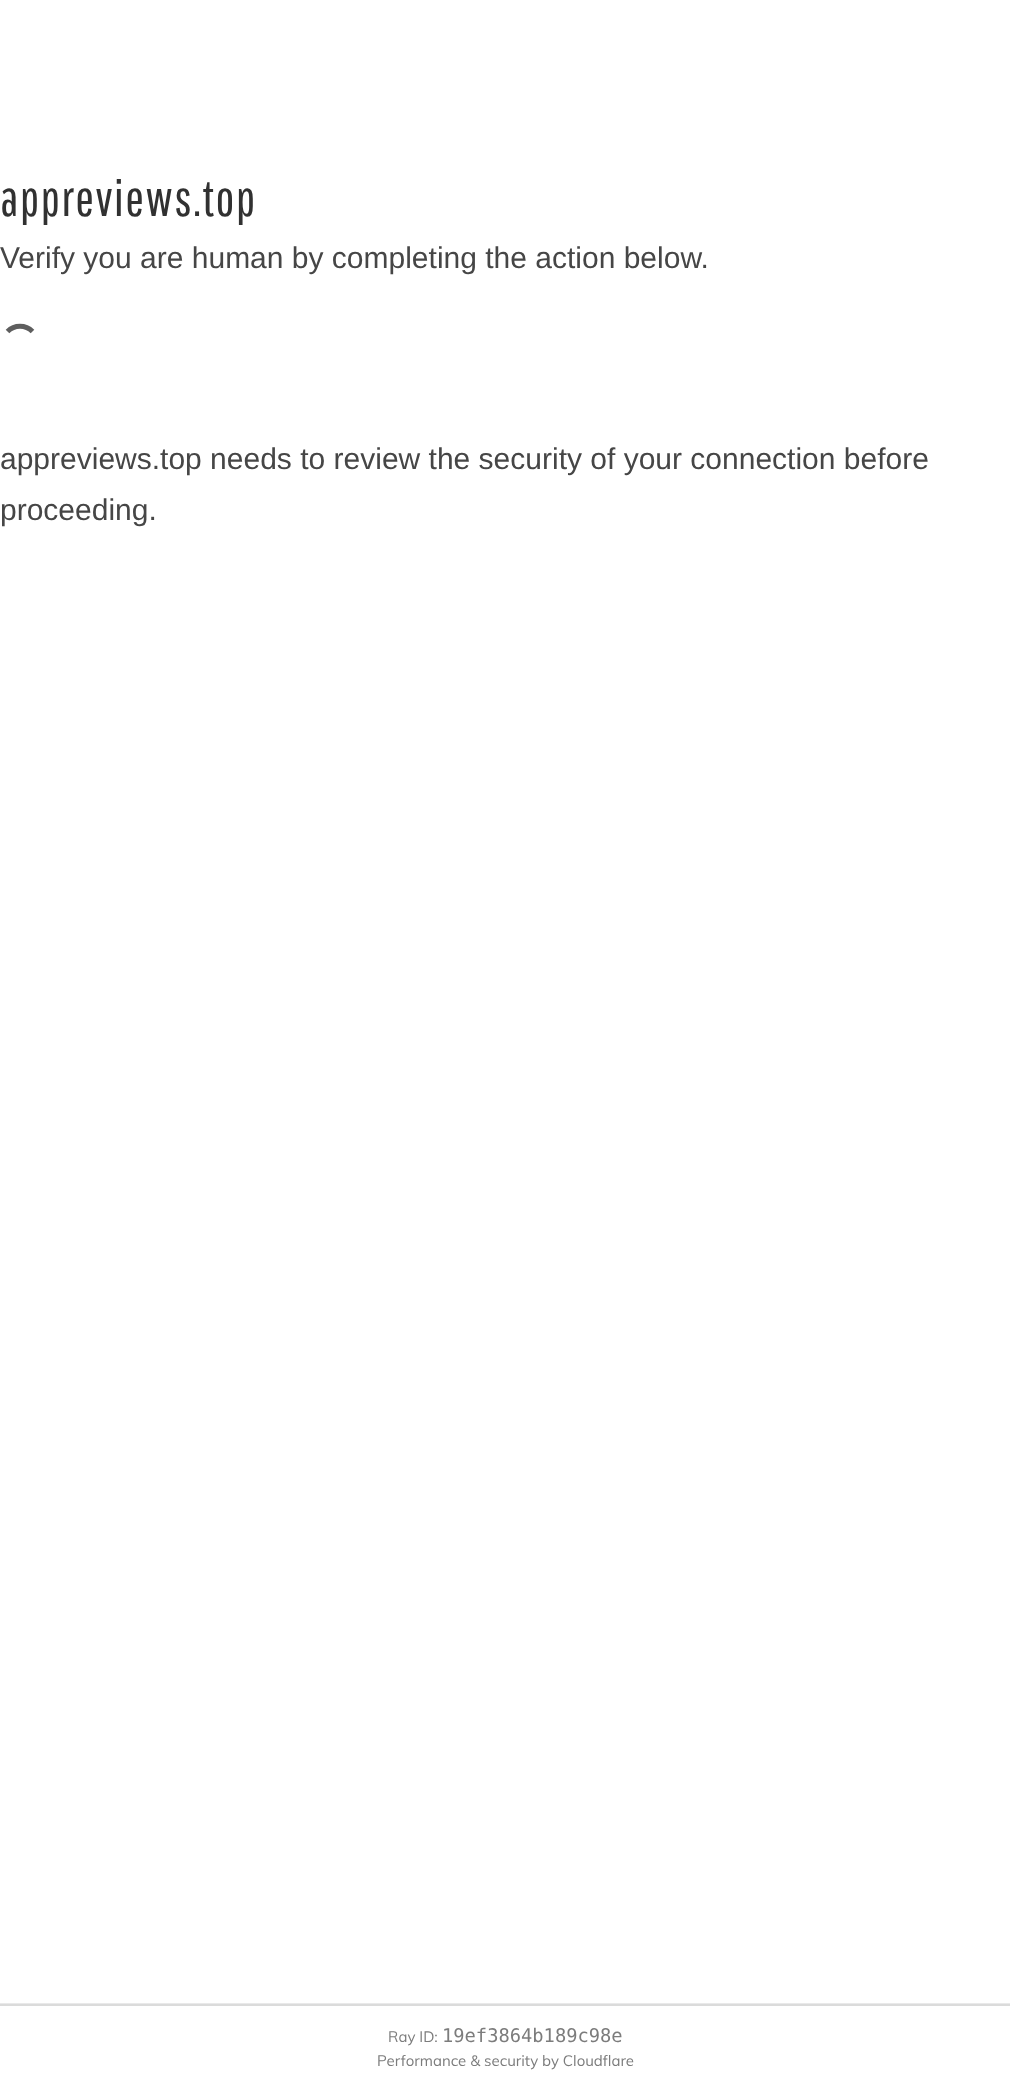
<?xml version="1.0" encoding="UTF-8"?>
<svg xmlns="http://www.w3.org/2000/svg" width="1010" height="2092">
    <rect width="100%" height="100%" fill="#FFFFFF"/>
    <text x="0" y="216" font-family="Pathway Gothic One" font-size="50" letter-spacing="1.25" fill="#313131">appreviews.top</text>
    <text x="0" y="268" font-family="Liberation Sans" font-size="30" fill="#464646">Verify you are human by completing the action below.</text>
    <path d="M 7.5 331.5 C 14.5 324.5 25.5 324.5 32.5 331.5" fill="none" stroke="#5E5E5E" stroke-width="5"/>
    <text font-family="Liberation Sans" font-size="30" fill="#464646">
        <tspan x="0" y="469">appreviews.top needs to review the security of your connection before</tspan>
        <tspan x="0" y="520">proceeding.</tspan>
    </text>
    <rect x="0" y="2004" width="1010" height="2" fill="#DBDBDB"/>
    <rect x="0" y="2003" width="1010" height="1" fill="#E9E9E9"/>
    <text x="388" y="2042" font-family="Muli" font-size="15" fill="#7C7C7C">Ray ID:</text>
    <text x="442" y="2042" font-family="DejaVu Sans Mono" font-size="18.75" fill="#7C7C7C">19ef3864b189c98e</text>
    <text x="377" y="2066" font-family="Muli" font-size="15" fill="#7C7C7C">Performance &amp; security by Cloudflare</text>
</svg>
